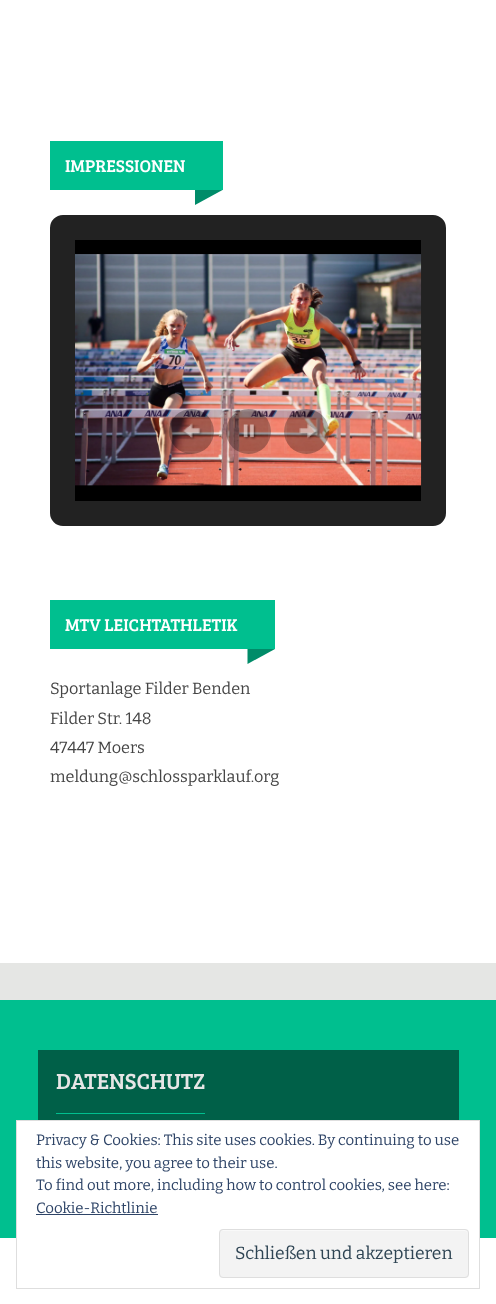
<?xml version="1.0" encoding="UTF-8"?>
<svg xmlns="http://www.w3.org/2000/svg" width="496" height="1304">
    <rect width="100%" height="100%" fill="#E5E6E4"/>
    <rect x="0" y="0" width="496" height="963" fill="#FFFFFF"/>
    <rect x="50" y="141" width="173" height="49" fill="#00BF8F"/>
    <text x="65" y="172" font-family="Bree Serif" font-size="17.5" fill="#FFFFFF">IMPRESSIONEN</text>
    <path d="M 195 190 H 222.5 L 195 205 Z" fill="#008C69"/>
    <rect x="62.5" y="227.5" width="371" height="286" rx="0.5" fill="none" stroke="#222222" stroke-width="25"/>
    <rect x="75" y="240" width="346" height="261" fill="#000000"/>
    <image x="75" y="254" width="347" height="232" href="img_01.png"/>
    <circle cx="191.5" cy="431.5" r="22.5" fill="#000000" fill-opacity="0.3"/>
    <image x="182" y="423" width="21" height="17" href="img_02.png"/>
    <rect x="170.5" y="410.5" width="42" height="42" fill="none" stroke="#FFFFFF" stroke-opacity="0.05" stroke-width="3"/>
    <circle cx="248.5" cy="431.5" r="22.5" fill="#000000" fill-opacity="0.3"/>
    <image x="243" y="424" width="14" height="16" href="img_03.png"/>
    <rect x="227.5" y="410.5" width="42" height="42" fill="none" stroke="#FFFFFF" stroke-opacity="0.05" stroke-width="3"/>
    <circle cx="306.5" cy="431.5" r="22.5" fill="#000000" fill-opacity="0.3"/>
    <image x="299" y="423" width="20" height="17" href="img_04.png"/>
    <rect x="285.5" y="410.5" width="42" height="42" fill="none" stroke="#FFFFFF" stroke-opacity="0.05" stroke-width="3"/>
    <rect x="50" y="600" width="225" height="49" fill="#00BF8F"/>
    <text x="65" y="631" font-family="Bree Serif" font-size="17.5" fill="#FFFFFF">MTV LEICHTATHLETIK</text>
    <path d="M 247.5 649 H 275 L 247.5 664 Z" fill="#008C69"/>
    <text font-family="Bitter" font-size="16.25" fill="#444444">
        <tspan x="50" y="694">Sportanlage Filder Benden</tspan>
        <tspan x="50" y="724">Filder Str. 148</tspan>
        <tspan x="50" y="753">47447 Moers</tspan>
        <tspan x="50" y="782">meldung@schlossparklauf.org</tspan>
    </text>
    <rect x="0" y="1000" width="496" height="238" fill="#00BF8F"/>
    <rect x="38" y="1050" width="421" height="70" fill="#006048"/>
    <rect x="56" y="1113" width="149" height="1" fill="#00BF8F"/>
    <text x="56" y="1089" font-family="Bree Serif" font-size="22.5" fill="#E6E6E6">DATENSCHUTZ</text>
    <rect x="0" y="1238" width="496" height="66" fill="#FFFFFF"/>
    <rect x="17" y="1121" width="462" height="117" fill="#FFFFFF"/>
    <rect x="16.5" y="1120.5" width="463" height="168" fill="none" stroke="#DEDEDE"/>
    <text font-family="Bitter" font-size="15" fill="#2E4467">
        <tspan x="36" y="1145">Privacy &amp; Cookies: This site uses cookies. By continuing to use</tspan>
        <tspan x="36" y="1168">this website, you agree to their use.</tspan>
        <tspan x="36" y="1190">To find out more, including how to control cookies, see here:</tspan>
        <tspan x="36" y="1213">Cookie-Richtlinie</tspan>
    </text>
    <rect x="36" y="1214" width="122" height="1" fill="#2E4467"/>
    <rect x="219" y="1229" width="250" height="49" rx="4" fill="#F3F3F3"/>
    <path d="M 222 1231 H 465 C 466 1231 468 1232 468 1234 C 468 1232 468 1230 466 1230 H 222 C 220 1231 220 1233 220 1234 C 220 1232 221 1231 222 1231 Z" fill="#F9F9F9"/>
    <rect x="219.5" y="1229.5" width="249" height="48" rx="3.5" fill="none" stroke="#DEDEDE"/>
    <text x="235" y="1259" font-family="Bitter" font-size="17.5" fill="#2E4453">Schließen und akzeptieren</text>
</svg>
